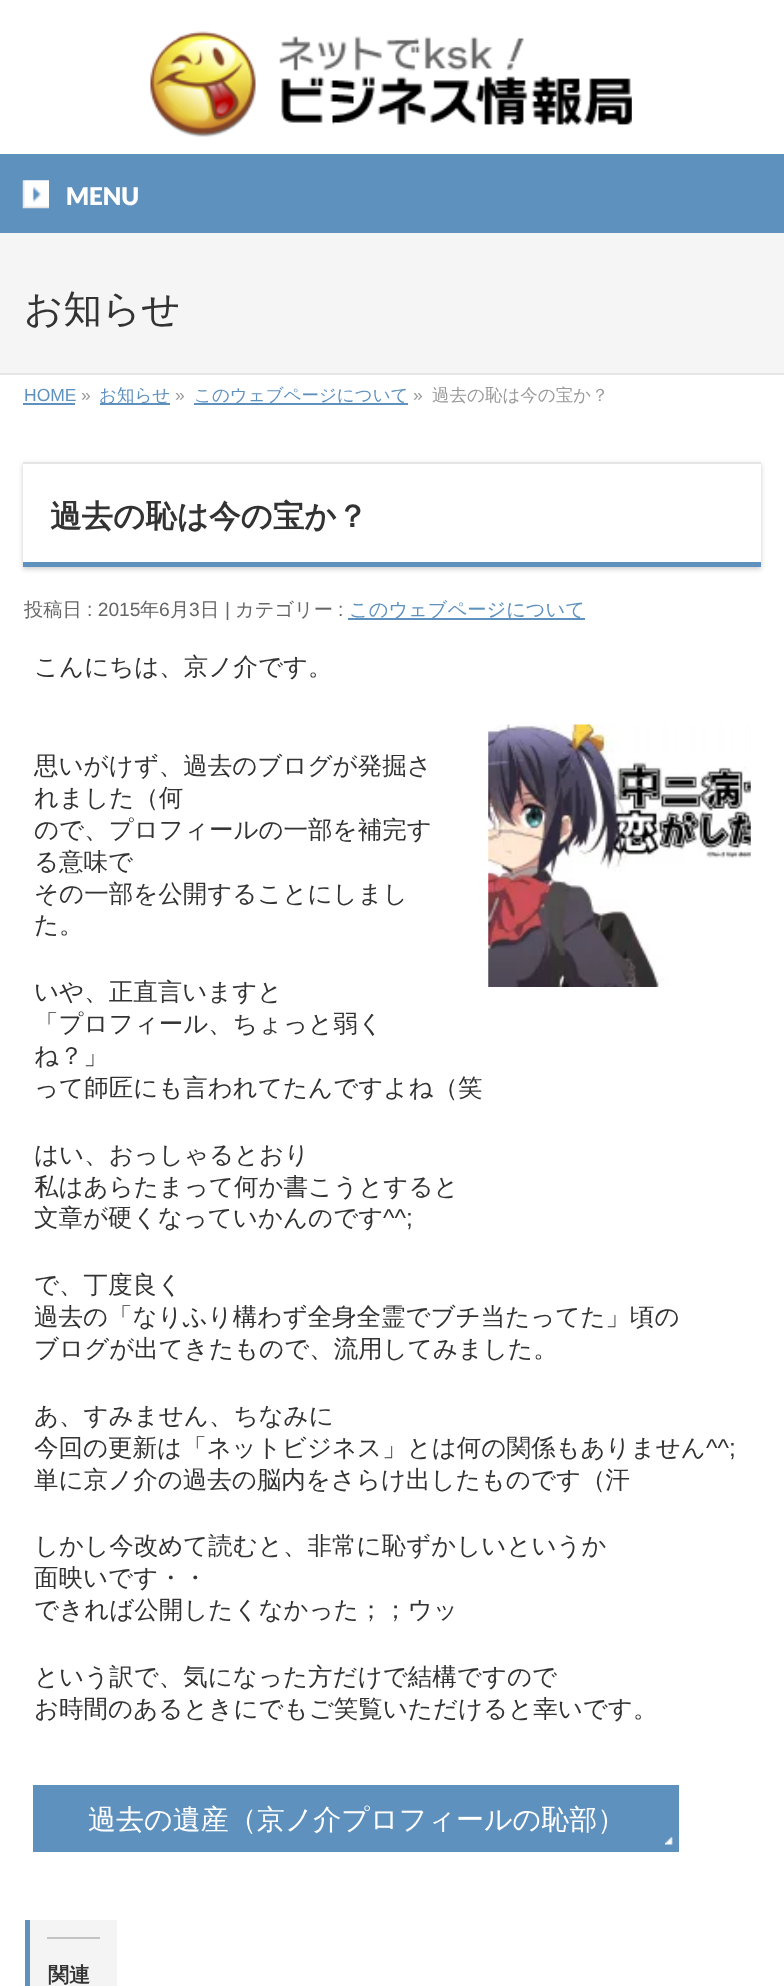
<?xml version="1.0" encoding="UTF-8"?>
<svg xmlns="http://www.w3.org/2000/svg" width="784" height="1986">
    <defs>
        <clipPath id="clip1"><path d="M 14 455 H 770 V 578 H 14 Z M 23 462 H 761 V 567 H 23 Z" clip-rule="evenodd"/></clipPath>
        <filter id="blur1" x="-50%" y="-200%" width="200%" height="500%"><feGaussianBlur stdDeviation="2.5"/></filter>
    </defs>
    <rect width="100%" height="100%" fill="#FFFFFF"/>
    <image x="150" y="31" width="482" height="106" href="img_01.png"/>
    <rect x="0" y="154" width="784" height="79" fill="#5F91BF"/>
    <image x="22" y="180" width="27" height="29" href="img_02.png"/>
    <text x="66" y="205" font-family="Lato" font-size="24.5" font-weight="900" fill="#FFFFFF">MENU</text>
    <rect x="0" y="233" width="784" height="140" fill="#F5F5F5"/>
    <rect x="0" y="373" width="784" height="2" fill="#E5E5E5"/>
    <text x="24" y="322" font-family="WenQuanYi Zen Hei" font-size="38.5" font-weight="500" fill="#333333">お知らせ</text>
    <text x="24" y="401" font-family="Liberation Sans" font-size="17.5" fill="#5F91BF">HOME</text>
    <rect x="23" y="403" width="52" height="2" fill="#5F91BF"/>
    <text x="81" y="401" font-family="Liberation Sans" font-size="17.5" fill="#999999">»</text>
    <rect x="100" y="403" width="70" height="2" fill="#5F91BF"/>
    <text x="99" y="401" font-family="WenQuanYi Zen Hei" font-size="17.5" font-weight="500" fill="#5F91BF">お知らせ</text>
    <text x="175" y="401" font-family="Liberation Sans" font-size="17.5" fill="#999999">»</text>
    <rect x="194" y="403" width="214" height="2" fill="#5F91BF"/>
    <text x="194" y="401" font-family="WenQuanYi Zen Hei" font-size="17.5" font-weight="500" fill="#5F91BF">このウェブページについて</text>
    <text x="413" y="401" font-family="Liberation Sans" font-size="17.5" fill="#999999">»</text>
    <text x="432" y="401" font-family="WenQuanYi Zen Hei" font-size="17.5" font-weight="500" fill="#999999">過去の恥は今の宝か？</text>
    <g clip-path="url(#clip1)">
        <rect x="23" y="464" width="738" height="105" fill="#000000" fill-opacity="0.2" filter="url(#blur1)"/>
    </g>
    <rect x="23" y="462" width="738" height="2" fill="#E5E5E5"/>
    <rect x="23" y="562" width="738" height="5" fill="#5F91BF"/>
    <text x="50" y="527" font-family="WenQuanYi Zen Hei" font-size="31.5" font-weight="700" fill="#333333">過去の恥は今の宝か？</text>
    <text x="24" y="616" font-family="WenQuanYi Zen Hei" font-size="19.25" font-weight="500" fill="#666666">投稿日</text>
    <text x="87" y="616" font-family="Liberation Sans" font-size="19.25" fill="#666666">: 2015</text>
    <text x="140" y="616" font-family="WenQuanYi Zen Hei" font-size="19.25" font-weight="500" fill="#666666">年</text>
    <text x="159" y="616" font-family="Liberation Sans" font-size="19.25" fill="#666666">6</text>
    <text x="170" y="616" font-family="WenQuanYi Zen Hei" font-size="19.25" font-weight="500" fill="#666666">月</text>
    <text x="189" y="616" font-family="Liberation Sans" font-size="19.25" fill="#666666">3</text>
    <text x="200" y="616" font-family="WenQuanYi Zen Hei" font-size="19.25" font-weight="500" fill="#666666">日</text>
    <text x="225" y="616" font-family="Liberation Sans" font-size="19.25" fill="#666666">|</text>
    <text x="235" y="616" font-family="WenQuanYi Zen Hei" font-size="19.25" font-weight="500" fill="#666666">カテゴリー</text>
    <text x="338" y="616" font-family="Liberation Sans" font-size="19.25" fill="#666666">:</text>
    <rect x="348" y="618" width="237" height="2" fill="#5F91BF"/>
    <text x="349" y="616" font-family="WenQuanYi Zen Hei" font-size="19.25" font-weight="500" fill="#5F91BF">このウェブページについて</text>
    <text x="34" y="675" font-family="WenQuanYi Zen Hei" font-size="24.5" font-weight="500" fill="#333333">こんにちは、京ノ介です。</text>
    <text x="34" y="774" font-family="WenQuanYi Zen Hei" font-size="24.5" font-weight="500" fill="#333333">思いがけず、過去のブログが発掘さ</text>
    <image x="488" y="724" width="263" height="263" href="img_03.png"/>
    <text font-family="WenQuanYi Zen Hei" font-size="24.5" font-weight="500" fill="#333333">
        <tspan x="34" y="806">れました（何</tspan>
        <tspan x="34" y="838">ので、プロフィールの一部を補完す</tspan>
        <tspan x="34" y="870">る意味で</tspan>
        <tspan x="34" y="902">その一部を公開することにしまし</tspan>
        <tspan x="34" y="933">た。</tspan>
    </text>
    <text font-family="WenQuanYi Zen Hei" font-size="24.5" font-weight="500" fill="#333333">
        <tspan x="34" y="1000">いや、正直言いますと</tspan>
        <tspan x="34" y="1032">「プロフィール、ちょっと弱く</tspan>
        <tspan x="34" y="1064">ね？」</tspan>
        <tspan x="34" y="1096">って師匠にも言われてたんですよね（笑</tspan>
    </text>
    <text font-family="WenQuanYi Zen Hei" font-size="24.5" font-weight="500" fill="#333333">
        <tspan x="34" y="1163">はい、おっしゃるとおり</tspan>
        <tspan x="34" y="1195">私はあらたまって何か書こうとすると</tspan>
        <tspan x="34" y="1226">文章が硬くなっていかんのです</tspan>
    </text>
    <text x="383" y="1226" font-family="Liberation Sans" font-size="24.5" fill="#333333">^^;</text>
    <text font-family="WenQuanYi Zen Hei" font-size="24.5" font-weight="500" fill="#333333">
        <tspan x="34" y="1293">で、丁度良く</tspan>
        <tspan x="34" y="1325">過去の「なりふり構わず全身全霊でブチ当たってた」頃の</tspan>
        <tspan x="34" y="1357">ブログが出てきたもので、流用してみました。</tspan>
    </text>
    <text font-family="WenQuanYi Zen Hei" font-size="24.5" font-weight="500" fill="#333333">
        <tspan x="34" y="1424">あ、すみません、ちなみに</tspan>
        <tspan x="34" y="1456">今回の更新は「ネットビジネス」とは何の関係もありません</tspan>
    </text>
    <text x="706" y="1456" font-family="Liberation Sans" font-size="24.5" fill="#333333">^^;</text>
    <text x="34" y="1488" font-family="WenQuanYi Zen Hei" font-size="24.5" font-weight="500" fill="#333333">単に京ノ介の過去の脳内をさらけ出したものです（汗</text>
    <text font-family="WenQuanYi Zen Hei" font-size="24.5" font-weight="500" fill="#333333">
        <tspan x="34" y="1554">しかし今改めて読むと、非常に恥ずかしいというか</tspan>
        <tspan x="34" y="1586">面映いです・・</tspan>
        <tspan x="34" y="1618">できれば公開したくなかった；；ウッ</tspan>
    </text>
    <text font-family="WenQuanYi Zen Hei" font-size="24.5" font-weight="500" fill="#333333">
        <tspan x="34" y="1685">という訳で、気になった方だけで結構ですので</tspan>
        <tspan x="34" y="1717">お時間のあるときにでもご笑覧いただけると幸いです。</tspan>
    </text>
    <rect x="33" y="1785" width="646" height="67" fill="#5F91BF"/>
    <image x="665" y="1837" width="8" height="8" href="img_04.png"/>
    <text x="88" y="1829" font-family="WenQuanYi Zen Hei" font-size="28" font-weight="500" fill="#FFFFFF">過去の遺産（京ノ介プロフィールの恥部）</text>
    <rect x="30" y="1920" width="87" height="66" fill="#F4F4F4"/>
    <rect x="25" y="1920" width="5" height="66" fill="#5F91BF"/>
    <rect x="47" y="1937" width="53" height="2" fill="#C3C3C3"/>
    <text x="48" y="1982" font-family="WenQuanYi Zen Hei" font-size="21" font-weight="700" fill="#333333">関連</text>
</svg>
